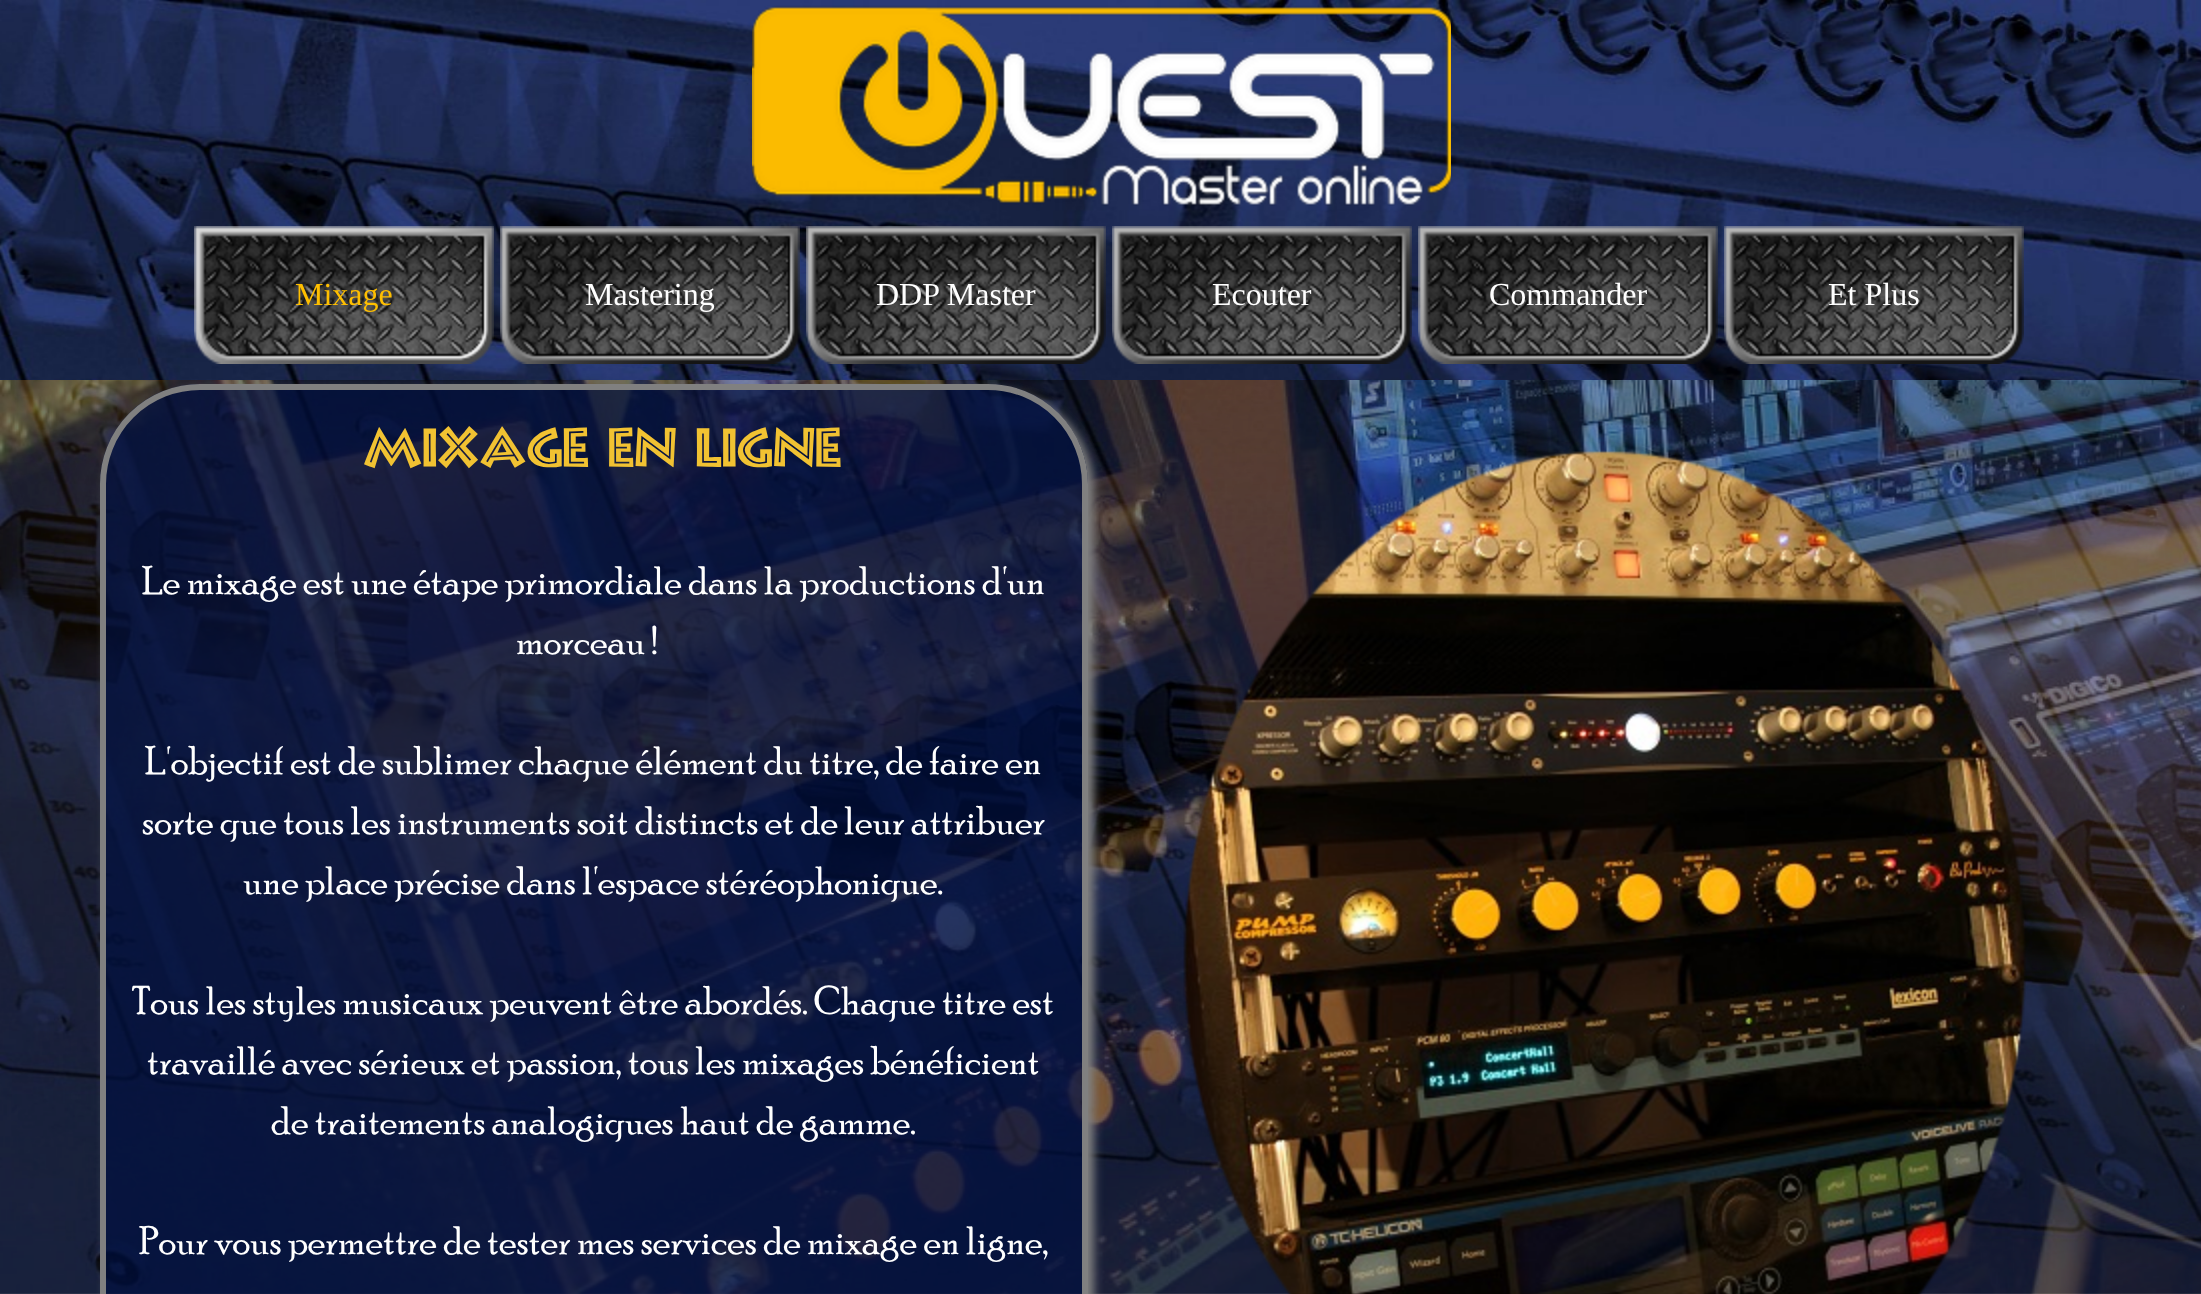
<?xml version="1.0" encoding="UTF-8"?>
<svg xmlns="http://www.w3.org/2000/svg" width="2201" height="1294">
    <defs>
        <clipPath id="clip1"><path d="M 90 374 H 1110 V 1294 H 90 Z M 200 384 H 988 C 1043 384 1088 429 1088 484 V 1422 C 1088 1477 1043 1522 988 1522 H 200 C 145 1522 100 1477 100 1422 V 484 C 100 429 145 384 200 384 Z" clip-rule="evenodd"/></clipPath>
        <filter id="blur1" x="-50%" y="-200%" width="200%" height="500%"><feGaussianBlur stdDeviation="5"/></filter>
    </defs>
    <rect width="100%" height="100%" fill="#FFFFFF"/>
    <image x="0" y="0" width="2201" height="1294" href="img_01.png"/>
    <image x="752" y="5" width="699" height="201" href="img_02.png"/>
    <image x="194" y="226" width="300" height="138" href="img_03.png"/>
    <text x="295" y="305" font-family="Liberation Serif" font-size="32" fill="#FFBF00">Mixage</text>
    <image x="500" y="226" width="300" height="138" href="img_04.png"/>
    <text x="585" y="305" font-family="Liberation Serif" font-size="32" fill="#FFFFFF">Mastering</text>
    <image x="806" y="226" width="300" height="138" href="img_05.png"/>
    <text x="876" y="305" font-family="Liberation Serif" font-size="32" fill="#FFFFFF">DDP Master</text>
    <image x="1112" y="226" width="300" height="138" href="img_06.png"/>
    <text x="1212" y="305" font-family="Liberation Serif" font-size="32" fill="#FFFFFF">Ecouter</text>
    <image x="1418" y="226" width="300" height="138" href="img_07.png"/>
    <text x="1489" y="305" font-family="Liberation Serif" font-size="32" fill="#FFFFFF">Commander</text>
    <image x="1724" y="226" width="300" height="138" href="img_08.png"/>
    <text x="1828" y="305" font-family="Liberation Serif" font-size="32" fill="#FFFFFF">Et Plus</text>
    <image x="0" y="380" width="2201" height="914" href="img_09.png"/>
    <rect x="100" y="384" width="988" height="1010" rx="100" fill="#001040" fill-opacity="0.7"/>
    <g clip-path="url(#clip1)">
        <rect x="106" y="390" width="988" height="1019" rx="100" fill="#808080" filter="url(#blur1)"/>
    </g>
    <rect x="103" y="387" width="982" height="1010" rx="97" fill="none" stroke="#808080" stroke-width="6"/>
    <text x="363" y="466" font-family="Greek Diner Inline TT" font-size="53.25" fill="#F1C232">MIxage en ligne</text>
    <text x="142" y="594" font-family="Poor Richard" font-size="40" fill="#FFFFFF">Le mixage est une étape primordiale dans la productions d'un</text>
    <text x="516" y="654" font-family="Poor Richard" font-size="40" fill="#FFFFFF">morceau !</text>
    <text x="145" y="774" font-family="Poor Richard" font-size="40" fill="#FFFFFF">L'objectif est de sublimer chaque élément du titre, de faire en</text>
    <text x="142" y="834" font-family="Poor Richard" font-size="40" fill="#FFFFFF">sorte que tous les instruments soit distincts et de leur attribuer</text>
    <text x="243" y="894" font-family="Poor Richard" font-size="40" fill="#FFFFFF">une place précise dans l'espace stéréophonique.</text>
    <text x="132" y="1014" font-family="Poor Richard" font-size="40" fill="#FFFFFF">Tous les styles musicaux peuvent être abordés. Chaque titre est</text>
    <text x="147" y="1074" font-family="Poor Richard" font-size="40" fill="#FFFFFF">travaillé avec sérieux et passion, tous les mixages bénéficient</text>
    <text x="271" y="1134" font-family="Poor Richard" font-size="40" fill="#FFFFFF">de traitements analogiques haut de gamme.</text>
    <text x="139" y="1254" font-family="Poor Richard" font-size="40" fill="#FFFFFF">Pour vous permettre de tester mes services de mixage en ligne,</text>
    <image x="1183" y="450" width="843" height="844" href="img_10.png"/>
</svg>
